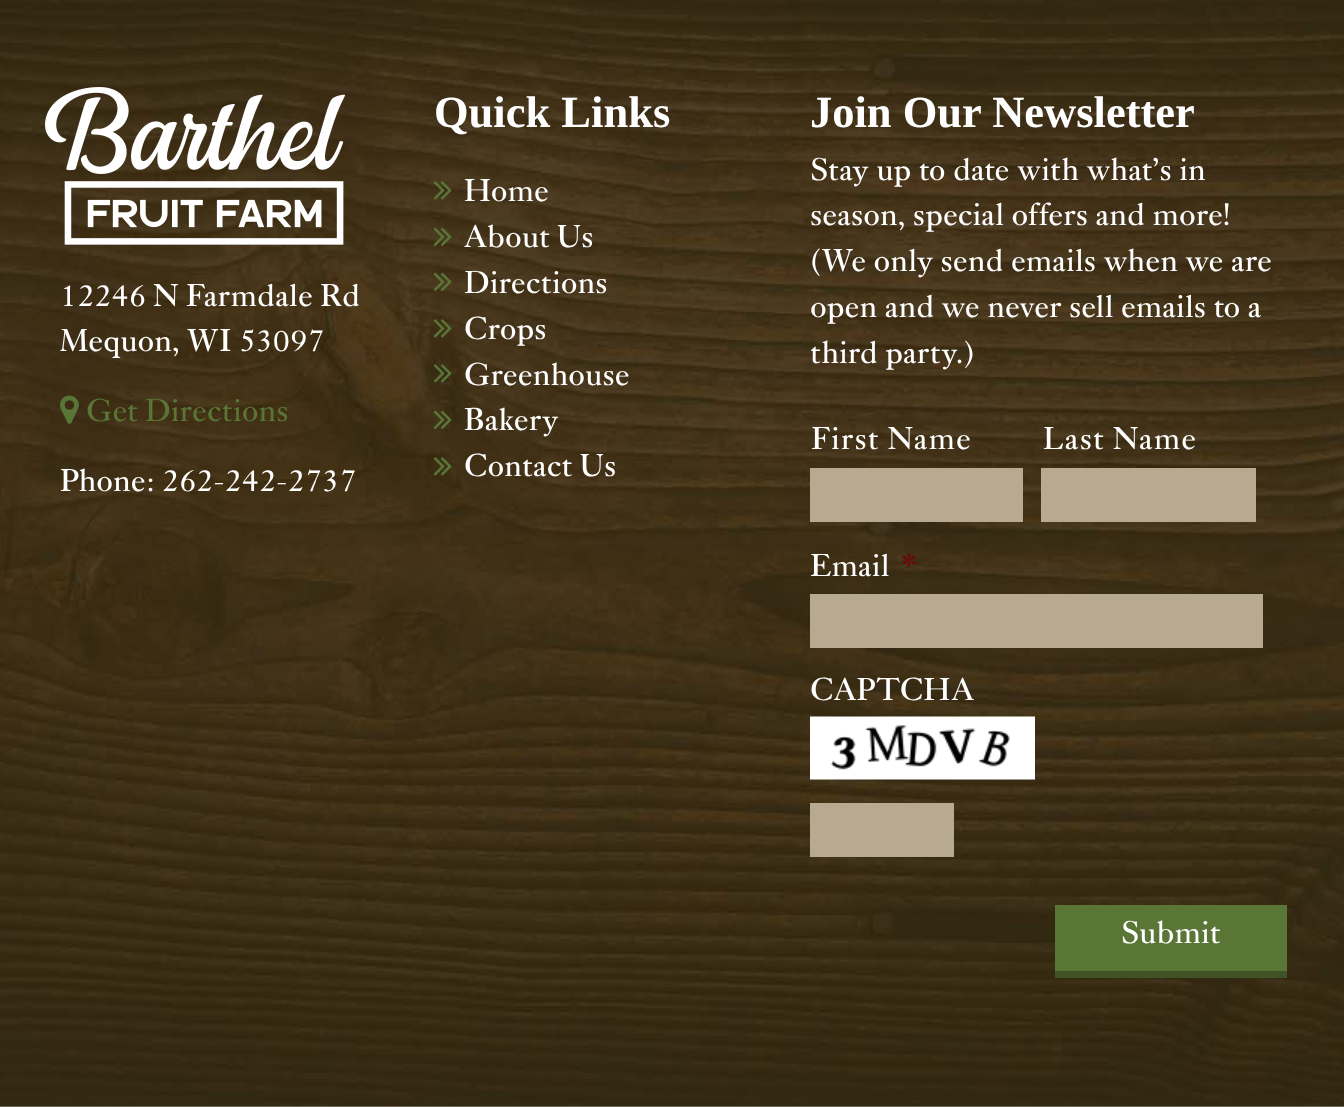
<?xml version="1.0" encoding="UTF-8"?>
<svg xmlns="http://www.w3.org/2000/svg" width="1344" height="1107">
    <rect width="100%" height="100%" fill="#827C70"/>
    <image x="0" y="0" width="1344" height="1107" href="img_01.png"/>
    <image x="45" y="87" width="300" height="158" href="img_02.png"/>
    <text font-family="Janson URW" font-size="33" fill="#FFFFFF">
        <tspan x="60" y="306">12246 N Farmdale Rd</tspan>
        <tspan x="60" y="351">Mequon, WI 53097</tspan>
    </text>
    <image x="60" y="395" width="19" height="29" href="img_03.png"/>
    <text x="86" y="421" font-family="Janson URW" font-size="33" fill="#597636">Get Directions</text>
    <text x="60" y="491" font-family="Janson URW" font-size="33" fill="#FFFFFF">Phone: 262-242-2737</text>
    <text x="434" y="127" font-family="Liberation Serif" font-size="44.5" font-weight="700" fill="#FFFFFF">Quick Links</text>
    <image x="433" y="181" width="19" height="19" href="img_04.png"/>
    <text x="464" y="201" font-family="Janson URW" font-size="33" fill="#FFFFFF">Home</text>
    <image x="433" y="227" width="19" height="19" href="img_05.png"/>
    <text x="464" y="247" font-family="Janson URW" font-size="33" fill="#FFFFFF">About Us</text>
    <image x="433" y="272" width="19" height="19" href="img_06.png"/>
    <text x="464" y="293" font-family="Janson URW" font-size="33" fill="#FFFFFF">Directions</text>
    <image x="433" y="319" width="19" height="19" href="img_07.png"/>
    <text x="464" y="339" font-family="Janson URW" font-size="33" fill="#FFFFFF">Crops</text>
    <image x="433" y="364" width="19" height="19" href="img_08.png"/>
    <text x="464" y="385" font-family="Janson URW" font-size="33" fill="#FFFFFF">Greenhouse</text>
    <image x="433" y="410" width="19" height="19" href="img_09.png"/>
    <text x="464" y="430" font-family="Janson URW" font-size="33" fill="#FFFFFF">Bakery</text>
    <image x="433" y="457" width="19" height="19" href="img_10.png"/>
    <text x="464" y="476" font-family="Janson URW" font-size="33" fill="#FFFFFF">Contact Us</text>
    <text x="810" y="127" font-family="Liberation Serif" font-size="44.5" font-weight="700" fill="#FFFFFF">Join Our Newsletter</text>
    <text font-family="Janson URW" font-size="33" fill="#FFFFFF">
        <tspan x="810" y="180">Stay up to date with what’s in</tspan>
        <tspan x="810" y="225">season, special offers and more!</tspan>
        <tspan x="810" y="271">(We only send emails when we are</tspan>
        <tspan x="810" y="317">open and we never sell emails to a</tspan>
        <tspan x="810" y="363">third party.)</tspan>
    </text>
    <text x="811" y="449" font-family="Janson URW" font-size="33" letter-spacing="1" fill="#FFFFFF">First Name</text>
    <rect x="810" y="468" width="213" height="54" fill="#B8AA90"/>
    <text x="1043" y="449" font-family="Janson URW" font-size="33" letter-spacing="1" fill="#FFFFFF">Last Name</text>
    <rect x="1041" y="468" width="215" height="54" fill="#B8AA90"/>
    <text x="810" y="576" font-family="Janson URW" font-size="33" fill="#FFFFFF">Email</text>
    <text x="901" y="576" font-family="Janson URW" font-size="33" fill="#790000">*</text>
    <rect x="810" y="594" width="453" height="54" fill="#B8AA90"/>
    <text x="810" y="700" font-family="Janson URW" font-size="33" fill="#FFFFFF">CAPTCHA</text>
    <image x="810" y="716" width="225" height="64" href="img_11.png"/>
    <rect x="810" y="803" width="144" height="54" fill="#B8AA90"/>
    <rect x="1055" y="905" width="232" height="66" fill="#597636"/>
    <rect x="1055" y="971" width="232" height="7" fill="#3F5326"/>
    <text x="1121" y="943" font-family="Janson URW" font-size="33" fill="#FFFFFF">Submit</text>
</svg>
